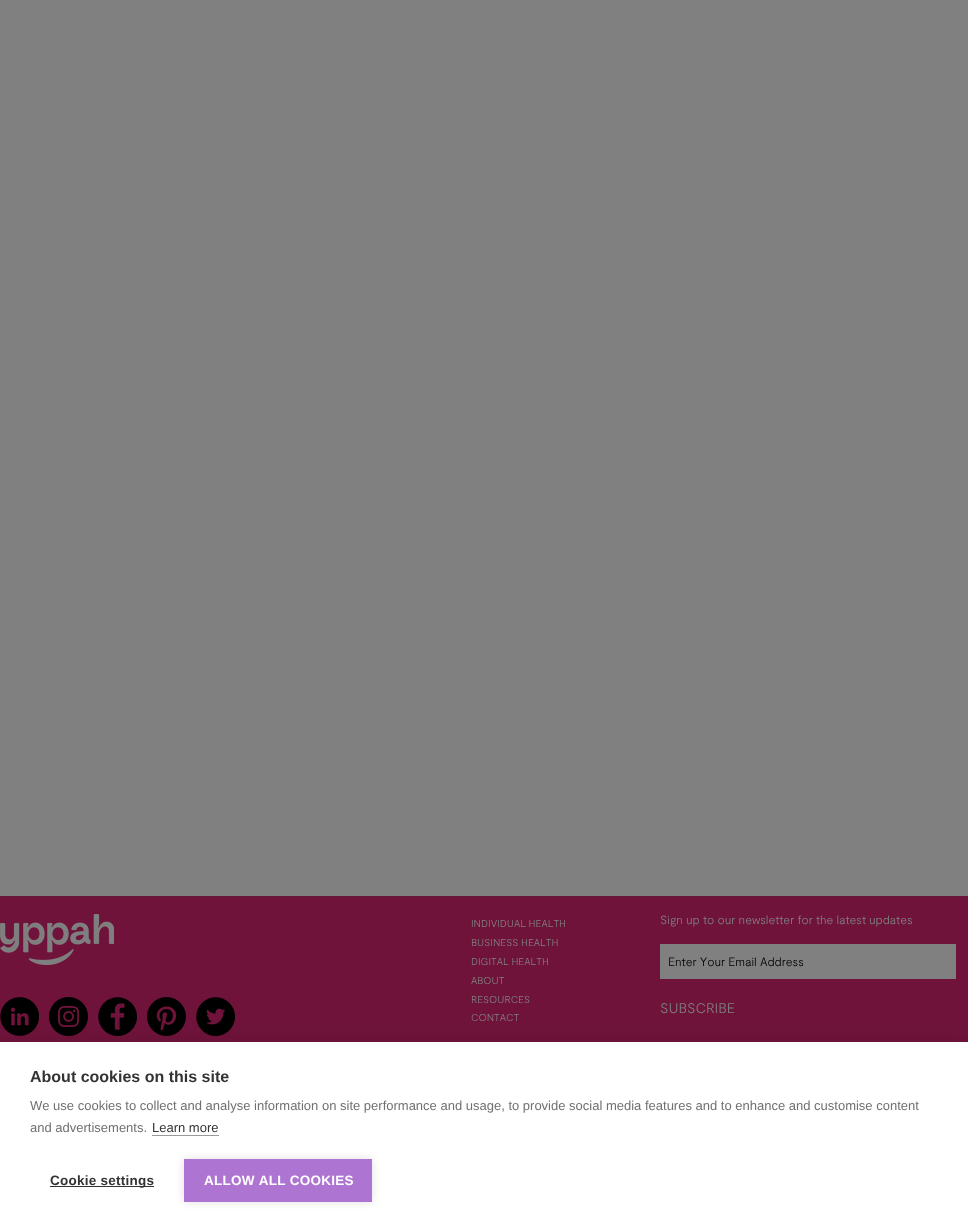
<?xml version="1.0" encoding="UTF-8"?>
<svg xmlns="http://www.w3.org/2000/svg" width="968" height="1227">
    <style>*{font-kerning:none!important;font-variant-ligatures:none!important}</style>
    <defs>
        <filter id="blur1" x="-50%" y="-200%" width="200%" height="500%"><feGaussianBlur stdDeviation="10"/></filter>
        <filter id="blur2" x="-50%" y="-200%" width="200%" height="500%"><feGaussianBlur stdDeviation="5"/></filter>
    </defs>
    <rect width="100%" height="100%" fill="#808080"/>
    <rect x="0" y="897" width="968" height="145" fill="#6F133B"/>
    <rect x="0" y="896" width="968" height="1" fill="#651739"/>
    <image x="0" y="914" width="114" height="51" href="img_01.png"/>
    <text font-family="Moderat" font-size="10" font-weight="300" fill="#808080">
        <tspan x="471" y="927">INDIVIDUAL HEALTH</tspan>
        <tspan x="471" y="946">BUSINESS HEALTH</tspan>
        <tspan x="471" y="965">DIGITAL HEALTH</tspan>
        <tspan x="471" y="984">ABOUT</tspan>
        <tspan x="471" y="1003">RESOURCES</tspan>
        <tspan x="471" y="1021">CONTACT</tspan>
    </text>
    <text x="660" y="924" font-family="Moderat" font-size="12" font-weight="300" fill="#808080">Sign up to our newsletter for the latest</text>
    <text x="869" y="924" font-family="Moderat" font-size="12" font-weight="300" fill="#808080">updates</text>
    <rect x="660" y="944" width="296" height="35" fill="#808080"/>
    <text x="668" y="966" font-family="Moderat" font-size="12" font-weight="300" fill="#000000">Enter Your Email Address</text>
    <text x="660" y="1013" font-family="Moderat" font-size="14" font-weight="300" fill="#808080">SUBSCRIBE</text>
    <image x="0" y="997" width="39" height="39" href="img_02.png"/>
    <image x="49" y="997" width="39" height="39" href="img_03.png"/>
    <image x="98" y="997" width="39" height="39" href="img_04.png"/>
    <image x="147" y="997" width="39" height="39" href="img_05.png"/>
    <image x="196" y="997" width="39" height="39" href="img_06.png"/>
    <rect x="0" y="1042" width="968" height="185" fill="#000000" fill-opacity="0.1" filter="url(#blur1)"/>
    <rect x="0" y="1042" width="968" height="185" fill="#FFFFFF"/>
    <text x="30" y="1082" font-family="Liberation Sans" font-size="16" font-weight="700" fill="#333333">About cookies on this site</text>
    <text font-family="Liberation Sans" font-size="13" fill="#707070">
        <tspan x="30" y="1110">We use cookies to collect and analyse information on site performance and usage, to provide social media features and to enhance and customise content</tspan>
        <tspan x="30" y="1132">and advertisements.</tspan>
    </text>
    <text x="152" y="1132" font-family="Liberation Sans" font-size="13" fill="#333333">Learn more</text>
    <rect x="152" y="1135" width="67" height="1" fill="#999999"/>
    <rect x="50" y="1186" width="104" height="1" fill="#333333"/>
    <text x="50" y="1185" font-family="Liberation Sans" font-size="13.5" font-weight="700" letter-spacing="0.25" fill="#333333">Cookie settings</text>
    <rect x="184" y="1159" width="188" height="43" fill="#000000" fill-opacity="0.12" filter="url(#blur2)"/>
    <rect x="184" y="1159" width="188" height="43" fill="#AE74D2"/>
    <text x="204" y="1185" font-family="Liberation Sans" font-size="13.5" font-weight="700" letter-spacing="0.25" fill="#FFFFFF">ALLOW ALL COOKIES</text>
</svg>
